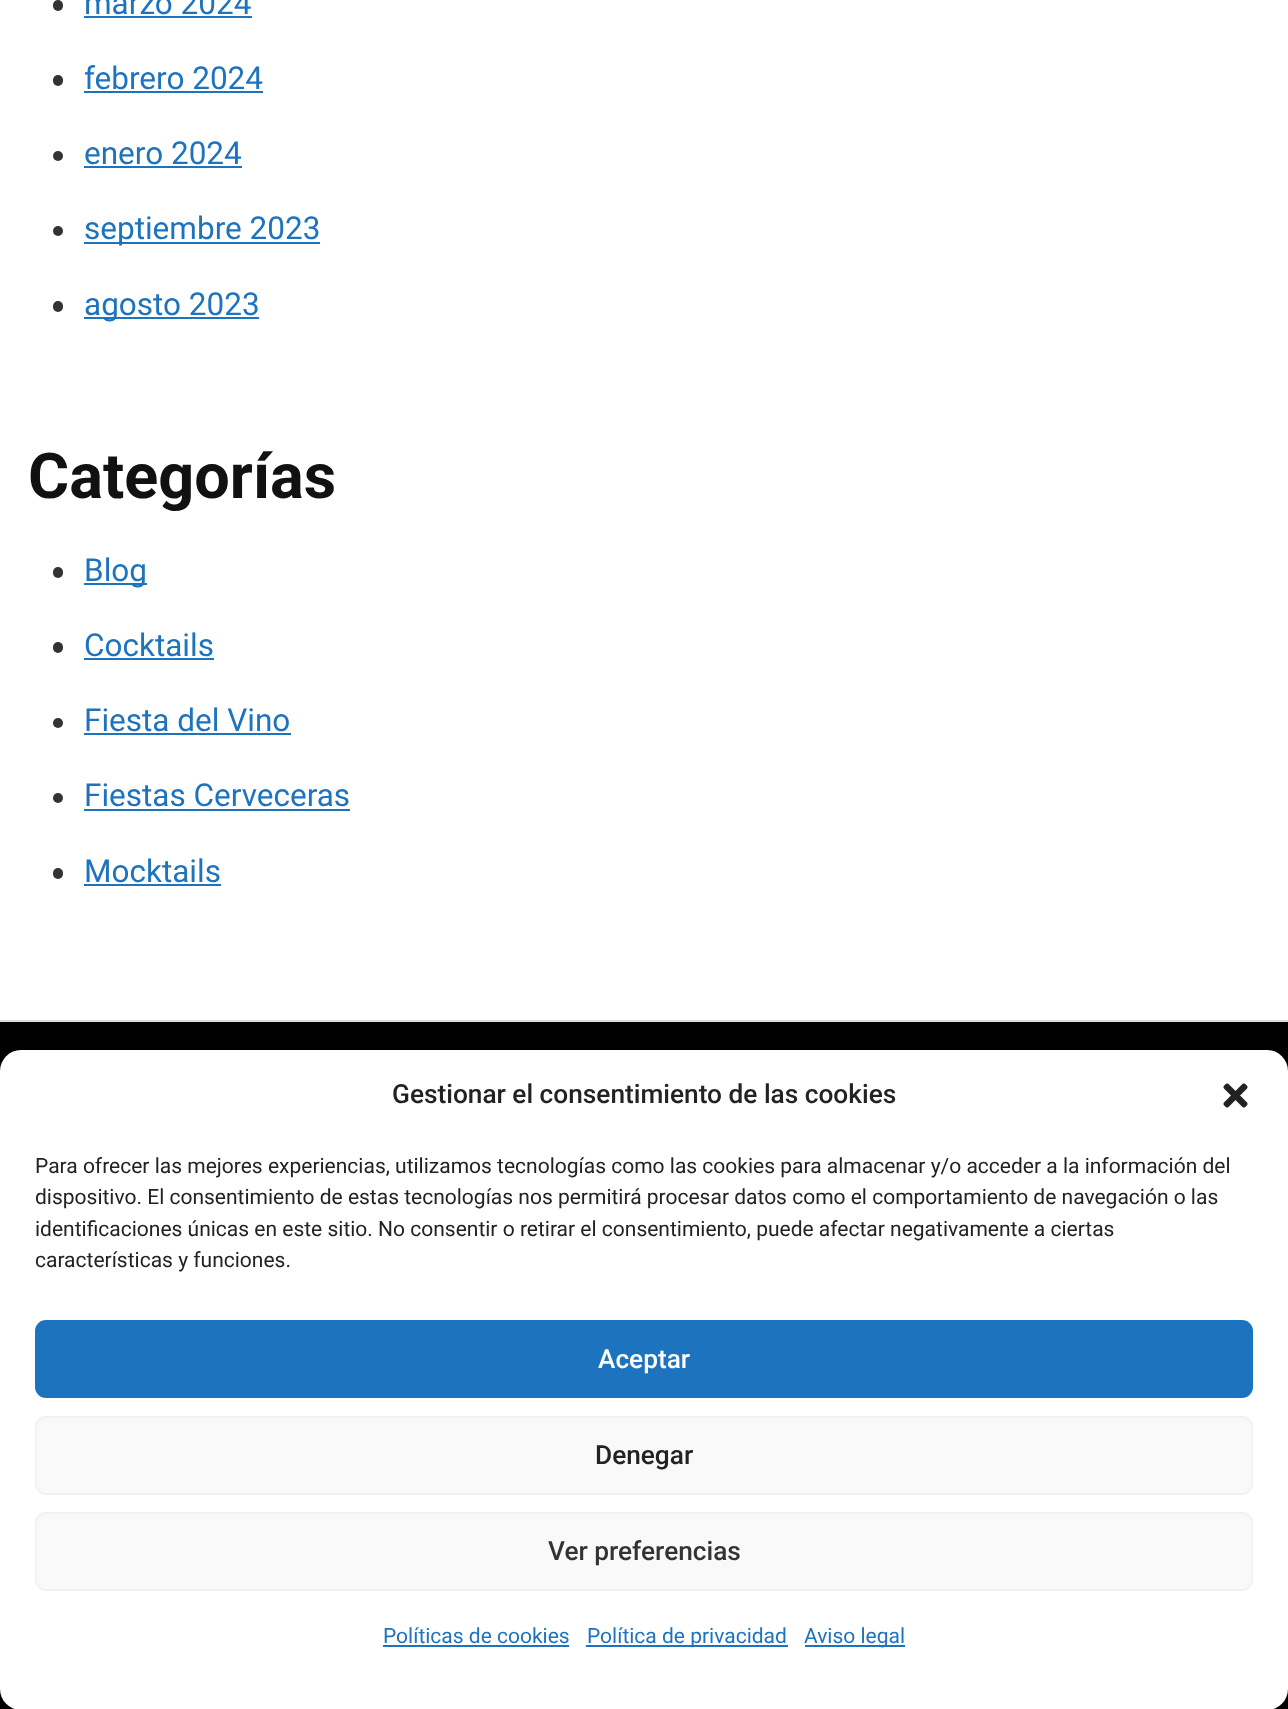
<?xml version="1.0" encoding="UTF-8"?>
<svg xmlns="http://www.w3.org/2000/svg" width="1288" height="1709">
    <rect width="100%" height="100%" fill="#FFFFFF"/>
    <rect x="53" y="0" width="10" height="11" rx="5" fill="#333333"/>
    <text x="84" y="14" font-family="Roboto" font-size="31.5" fill="#1E73BE">marzo 2024</text>
    <rect x="84" y="16" width="168" height="2" fill="#1E73BE"/>
    <rect x="53" y="75" width="10" height="11" rx="5" fill="#333333"/>
    <text x="84" y="89" font-family="Roboto" font-size="31.5" fill="#1E73BE">febrero 2024</text>
    <rect x="84" y="91" width="179" height="2" fill="#1E73BE"/>
    <circle cx="58" cy="156" r="5" fill="#333333"/>
    <text x="84" y="164" font-family="Roboto" font-size="31.5" fill="#1E73BE">enero 2024</text>
    <rect x="84" y="166" width="158" height="2" fill="#1E73BE"/>
    <circle cx="58" cy="231" r="5" fill="#333333"/>
    <rect x="84" y="242" width="236" height="2" fill="#1E73BE"/>
    <text x="84" y="239" font-family="Roboto" font-size="31.5" fill="#1E73BE">septiembre 2023</text>
    <rect x="53" y="301" width="10" height="11" rx="5" fill="#333333"/>
    <rect x="84" y="317" width="175" height="2" fill="#1E73BE"/>
    <text x="84" y="315" font-family="Roboto" font-size="31.5" fill="#1E73BE">agosto 2023</text>
    <text x="28" y="498" font-family="Roboto" font-size="63" font-weight="700" fill="#111111">Categorías</text>
    <rect x="53" y="567" width="10" height="11" rx="5" fill="#333333"/>
    <rect x="84" y="583" width="63" height="2" fill="#1E73BE"/>
    <text x="84" y="581" font-family="Roboto" font-size="31.5" fill="#1E73BE">Blog</text>
    <rect x="53" y="642" width="10" height="11" rx="5" fill="#333333"/>
    <text x="84" y="656" font-family="Roboto" font-size="31.5" fill="#1E73BE">Cocktails</text>
    <rect x="84" y="658" width="130" height="2" fill="#1E73BE"/>
    <circle cx="58" cy="723" r="5" fill="#333333"/>
    <text x="84" y="731" font-family="Roboto" font-size="31.5" fill="#1E73BE">Fiesta del Vino</text>
    <rect x="84" y="733" width="207" height="2" fill="#1E73BE"/>
    <circle cx="58" cy="798" r="5" fill="#333333"/>
    <text x="84" y="806" font-family="Roboto" font-size="31.5" fill="#1E73BE">Fiestas Cerveceras</text>
    <rect x="84" y="809" width="266" height="2" fill="#1E73BE"/>
    <rect x="53" y="868" width="10" height="11" rx="5" fill="#333333"/>
    <text x="84" y="882" font-family="Roboto" font-size="31.5" fill="#1E73BE">Mocktails</text>
    <rect x="84" y="884" width="137" height="2" fill="#1E73BE"/>
    <rect x="0" y="1022" width="1288" height="687" fill="#000000"/>
    <rect x="0" y="1020" width="1288" height="2" fill="#DBDBDB"/>
    <rect x="0" y="1050" width="1288" height="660" rx="21" fill="#FFFFFF"/>
    <text x="392" y="1103" font-family="Roboto" font-size="26.25" font-weight="500" fill="#222222">Gestionar el consentimiento de las cookies</text>
    <image x="1223" y="1083" width="25" height="25" href="img_01.png"/>
    <text font-family="Roboto" font-size="21" fill="#222222">
        <tspan x="35" y="1173">Para ofrecer las mejores experiencias, utilizamos tecnologías como las cookies para almacenar y/o acceder a la información del</tspan>
        <tspan x="35" y="1204">dispositivo. El consentimiento de estas tecnologías nos permitirá procesar datos como el comportamiento de navegación o las</tspan>
        <tspan x="35" y="1236">identificaciones únicas en este sitio. No consentir o retirar el consentimiento, puede afectar negativamente a ciertas</tspan>
        <tspan x="35" y="1267">características y funciones.</tspan>
    </text>
    <rect x="36" y="1321" width="1216" height="76" rx="10" fill="#1E73BE" stroke="#1E73BE" stroke-width="2"/>
    <text x="598" y="1368" font-family="Roboto" font-size="26.25" font-weight="500" fill="#FFFFFF">Aceptar</text>
    <rect x="36" y="1417" width="1216" height="77" rx="10" fill="#F9F9F9" stroke="#F2F2F2" stroke-width="2"/>
    <text x="595" y="1464" font-family="Roboto" font-size="26.25" font-weight="500" fill="#222222">Denegar</text>
    <rect x="36" y="1513" width="1216" height="77" rx="10" fill="#F9F9F9" stroke="#F2F2F2" stroke-width="2"/>
    <text x="548" y="1560" font-family="Roboto" font-size="26.25" font-weight="500" fill="#333333">Ver preferencias</text>
    <text x="383" y="1643" font-family="Roboto" font-size="21" fill="#1E73BE">Políticas de cookies</text>
    <rect x="383" y="1645" width="186" height="2" fill="#1E73BE"/>
    <rect x="586" y="1645" width="202" height="2" fill="#1E73BE"/>
    <text x="587" y="1643" font-family="Roboto" font-size="21" fill="#1E73BE">Política de privacidad</text>
    <rect x="805" y="1645" width="100" height="2" fill="#1E73BE"/>
    <text x="804" y="1643" font-family="Roboto" font-size="21" fill="#1E73BE">Aviso legal</text>
</svg>
